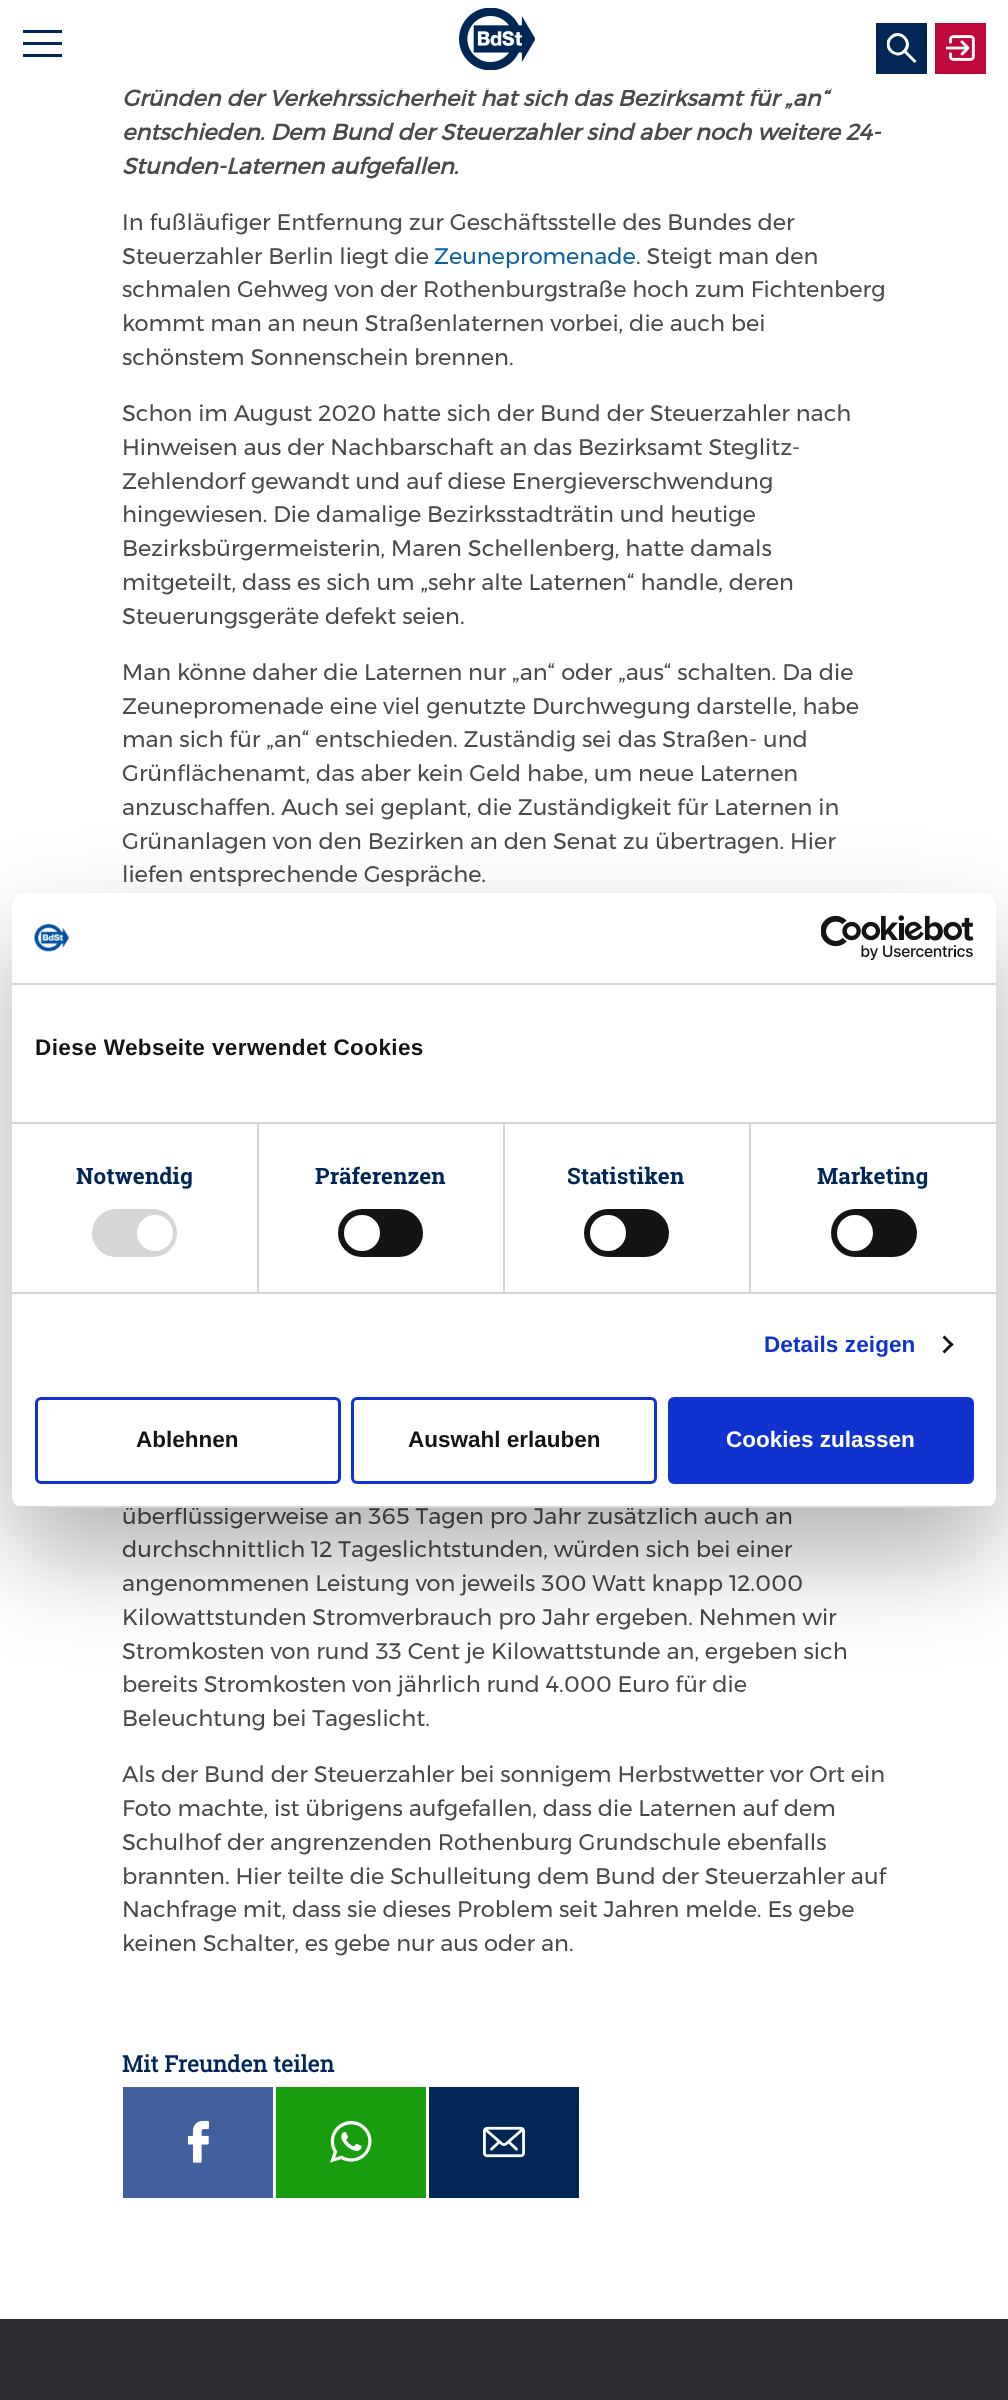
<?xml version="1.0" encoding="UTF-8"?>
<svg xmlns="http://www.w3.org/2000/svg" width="1008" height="2400">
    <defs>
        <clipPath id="clip1"><rect x="887" y="0" width="30" height="138"/></clipPath>
        <filter id="blur1" x="-50%" y="-200%" width="200%" height="500%"><feGaussianBlur stdDeviation="51"/></filter>
        <clipPath id="clip2"><rect x="12" y="893" width="984" height="615" rx="12"/></clipPath>
    </defs>
    <rect width="100%" height="100%" fill="#FFFFFF"/>
    <text x="122" y="106" font-family="Montserrat" font-size="22.5" font-weight="700" font-style="italic" fill="#4A4A4A">Gründen der Verkehrssicherheit hat sich das Bezirksamt für „an“</text>
    <rect x="155" y="89" width="676" height="1" fill="#FFFFFF"/>
    <rect x="23" y="30" width="39" height="3" fill="#012756"/>
    <rect x="23" y="42" width="39" height="3" fill="#012756"/>
    <rect x="23" y="54" width="39" height="3" fill="#012756"/>
    <image x="459" y="8" width="76" height="62" href="img_01.png"/>
    <rect x="876" y="23" width="51" height="51" fill="#012756"/>
    <g clip-path="url(#clip1)">
        <path d="M 891 37.5 C 900 28.5 913.5 42 904.5 51 C 895.5 60 882 46.5 891 37.5 Z" fill="none" stroke="#FFFFFF" stroke-width="3"/>
    </g>
    <path d="M 904.5 51 L 915.5 62" fill="none" stroke="#FFFFFF" stroke-width="3"/>
    <rect x="935" y="23" width="51" height="51" fill="#BE0839"/>
    <image x="945" y="35" width="30" height="26" href="img_02.png"/>
    <text font-family="Montserrat" font-size="22.5" font-weight="700" font-style="italic" fill="#4A4A4A">
        <tspan x="122" y="140">entschieden. Dem Bund der Steuerzahler sind aber noch weitere 24-</tspan>
        <tspan x="122" y="174">Stunden-Laternen aufgefallen.</tspan>
    </text>
    <text font-family="Montserrat" font-size="22.5" fill="#4A4A4A">
        <tspan x="122" y="230">In fußläufiger Entfernung zur Geschäftsstelle des Bundes der</tspan>
        <tspan x="122" y="264">Steuerzahler Berlin liegt die</tspan>
    </text>
    <text x="434" y="264" font-family="Montserrat" font-size="22.5" fill="#0960A2">Zeunepromenade</text>
    <text x="636" y="264" font-family="Montserrat" font-size="22.5" fill="#4A4A4A">. Steigt man den</text>
    <text font-family="Montserrat" font-size="22.5" fill="#4A4A4A">
        <tspan x="122" y="297">schmalen Gehweg von der Rothenburgstraße hoch zum Fichtenberg</tspan>
        <tspan x="122" y="331">kommt man an neun Straßenlaternen vorbei, die auch bei</tspan>
        <tspan x="122" y="365">schönstem Sonnenschein brennen.</tspan>
    </text>
    <text font-family="Montserrat" font-size="22.5" fill="#4A4A4A">
        <tspan x="122" y="421">Schon im August 2020 hatte sich der Bund der Steuerzahler nach</tspan>
        <tspan x="122" y="455">Hinweisen aus der Nachbarschaft an das Bezirksamt Steglitz-</tspan>
        <tspan x="122" y="489">Zehlendorf gewandt und auf diese Energieverschwendung</tspan>
        <tspan x="122" y="522">hingewiesen. Die damalige Bezirksstadträtin und heutige</tspan>
        <tspan x="122" y="556">Bezirksbürgermeisterin, Maren Schellenberg, hatte damals</tspan>
        <tspan x="122" y="590">mitgeteilt, dass es sich um „sehr alte Laternen“ handle, deren</tspan>
        <tspan x="122" y="624">Steuerungsgeräte defekt seien.</tspan>
    </text>
    <text font-family="Montserrat" font-size="22.5" fill="#4A4A4A">
        <tspan x="122" y="680">Man könne daher die Laternen nur „an“ oder „aus“ schalten. Da die</tspan>
        <tspan x="122" y="714">Zeunepromenade eine viel genutzte Durchwegung darstelle, habe</tspan>
        <tspan x="122" y="747">man sich für „an“ entschieden. Zuständig sei das Straßen- und</tspan>
        <tspan x="122" y="781">Grünflächenamt, das aber kein Geld habe, um neue Laternen</tspan>
        <tspan x="122" y="815">anzuschaffen. Auch sei geplant, die Zuständigkeit für Laternen in</tspan>
        <tspan x="122" y="849">Grünanlagen von den Bezirken an den Senat zu übertragen. Hier</tspan>
        <tspan x="122" y="882">liefen entsprechende Gespräche.</tspan>
    </text>
    <text font-family="Montserrat" font-size="22.5" fill="#4A4A4A">
        <tspan x="122" y="1524">überflüssigerweise an 365 Tagen pro Jahr zusätzlich auch an</tspan>
        <tspan x="122" y="1557">durchschnittlich 12 Tageslichtstunden, würden sich bei einer</tspan>
        <tspan x="122" y="1591">angenommenen Leistung von jeweils 300 Watt knapp 12.000</tspan>
        <tspan x="122" y="1625">Kilowattstunden Stromverbrauch pro Jahr ergeben. Nehmen wir</tspan>
        <tspan x="122" y="1659">Stromkosten von rund 33 Cent je Kilowattstunde an, ergeben sich</tspan>
        <tspan x="122" y="1692">bereits Stromkosten von jährlich rund 4.000 Euro für die</tspan>
        <tspan x="122" y="1726">Beleuchtung bei Tageslicht.</tspan>
    </text>
    <text font-family="Montserrat" font-size="22.5" fill="#4A4A4A">
        <tspan x="122" y="1782">Als der Bund der Steuerzahler bei sonnigem Herbstwetter vor Ort ein</tspan>
        <tspan x="122" y="1816">Foto machte, ist übrigens aufgefallen, dass die Laternen auf dem</tspan>
        <tspan x="122" y="1850">Schulhof der angrenzenden Rothenburg Grundschule ebenfalls</tspan>
        <tspan x="122" y="1884">brannten. Hier teilte die Schulleitung dem Bund der Steuerzahler auf</tspan>
        <tspan x="122" y="1917">Nachfrage mit, dass sie dieses Problem seit Jahren melde. Es gebe</tspan>
        <tspan x="122" y="1951">keinen Schalter, es gebe nur aus oder an.</tspan>
    </text>
    <text x="122" y="2072" font-family="Roboto Slab" font-size="22.5" font-weight="700" fill="#002657">Mit Freunden teilen</text>
    <rect x="123" y="2087" width="150" height="111" fill="#42609E"/>
    <image x="188" y="2121" width="21" height="42" href="img_03.png"/>
    <rect x="276" y="2087" width="150" height="111" fill="#189D0E"/>
    <image x="330" y="2121" width="42" height="42" href="img_04.png"/>
    <rect x="429" y="2087" width="150" height="111" fill="#012756"/>
    <image x="483" y="2126" width="42" height="32" href="img_05.png"/>
    <rect x="12" y="941" width="984" height="615" rx="12" fill="#000000" fill-opacity="0.3" filter="url(#blur1)"/>
    <rect x="12" y="893" width="984" height="615" rx="12" fill="#FFFFFF"/>
    <rect x="12" y="983" width="984" height="2" fill="#D6D6D6"/>
    <image x="34" y="924" width="35" height="28" href="img_06.png"/>
    <image x="821" y="915" width="153" height="45" href="img_07.png"/>
    <rect x="12" y="1122" width="984" height="2" fill="#D6D6D6"/>
    <text x="35" y="1055" font-family="Liberation Sans" font-size="22.5" font-weight="700" letter-spacing="0.4" fill="#141414">Diese Webseite verwendet Cookies</text>
    <rect x="12" y="1292" width="984" height="2" fill="#D6D6D6"/>
    <rect x="257" y="1124" width="2" height="168" fill="#D6D6D6"/>
    <text x="76" y="1184" font-family="'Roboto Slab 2'" font-size="22.5" font-weight="700" letter-spacing="0.1" fill="#002657">Notwendig</text>
    <rect x="92" y="1209" width="85" height="48" rx="24" fill="#D6D6D6"/>
    <circle cx="155" cy="1233" r="18" fill="#FFFFFF"/>
    <rect x="503" y="1124" width="2" height="168" fill="#D6D6D6"/>
    <text x="315" y="1184" font-family="'Roboto Slab 2'" font-size="22.5" font-weight="700" letter-spacing="0.1" fill="#002657">Präferenzen</text>
    <rect x="338" y="1209" width="85" height="48" rx="24" fill="#141414"/>
    <circle cx="362" cy="1233" r="18" fill="#FFFFFF"/>
    <rect x="749" y="1124" width="2" height="168" fill="#D6D6D6"/>
    <text x="567" y="1184" font-family="'Roboto Slab 2'" font-size="22.5" font-weight="700" letter-spacing="0.1" fill="#002657">Statistiken</text>
    <rect x="584" y="1209" width="85" height="48" rx="24" fill="#141414"/>
    <circle cx="608" cy="1233" r="18" fill="#FFFFFF"/>
    <text x="817" y="1184" font-family="'Roboto Slab 2'" font-size="22.5" font-weight="700" letter-spacing="0.1" fill="#002657">Marketing</text>
    <rect x="831" y="1209" width="86" height="48" rx="24" fill="#141414"/>
    <circle cx="855" cy="1233" r="18" fill="#FFFFFF"/>
    <text x="764" y="1352" font-family="Liberation Sans" font-size="22.5" font-weight="700" letter-spacing="0.1" fill="#1032CF">Details zeigen</text>
    <path d="M 944.5 1335.5 L 953.5 1344.5 L 951.5 1346.5 L 942.5 1337.5 Z" fill="#141414"/>
    <path d="M 951.5 1342.5 L 953.5 1344.5 L 944.5 1353.5 L 942.5 1351.5 Z" fill="#141414"/>
    <g clip-path="url(#clip2)">
        <rect x="12" y="1506" width="984" height="2" fill="#D6D6D6"/>
    </g>
    <rect x="36.5" y="1398.5" width="303" height="84" rx="4.5" fill="none" stroke="#1032CF" stroke-width="3"/>
    <text x="136" y="1447" font-family="Liberation Sans" font-size="22.5" font-weight="700" fill="#141414">Ablehnen</text>
    <rect x="352.5" y="1398.5" width="303" height="84" rx="4.5" fill="none" stroke="#1032CF" stroke-width="3"/>
    <text x="408" y="1447" font-family="Liberation Sans" font-size="22.5" font-weight="700" fill="#141414">Auswahl erlauben</text>
    <rect x="669.5" y="1398.5" width="303" height="84" rx="4.5" fill="#1032CF" stroke="#1032CF" stroke-width="3"/>
    <text x="726" y="1447" font-family="Liberation Sans" font-size="22.5" font-weight="700" fill="#FFFFFF">Cookies zulassen</text>
    <rect x="0" y="2319" width="1008" height="81" fill="#2C2D31"/>
</svg>
